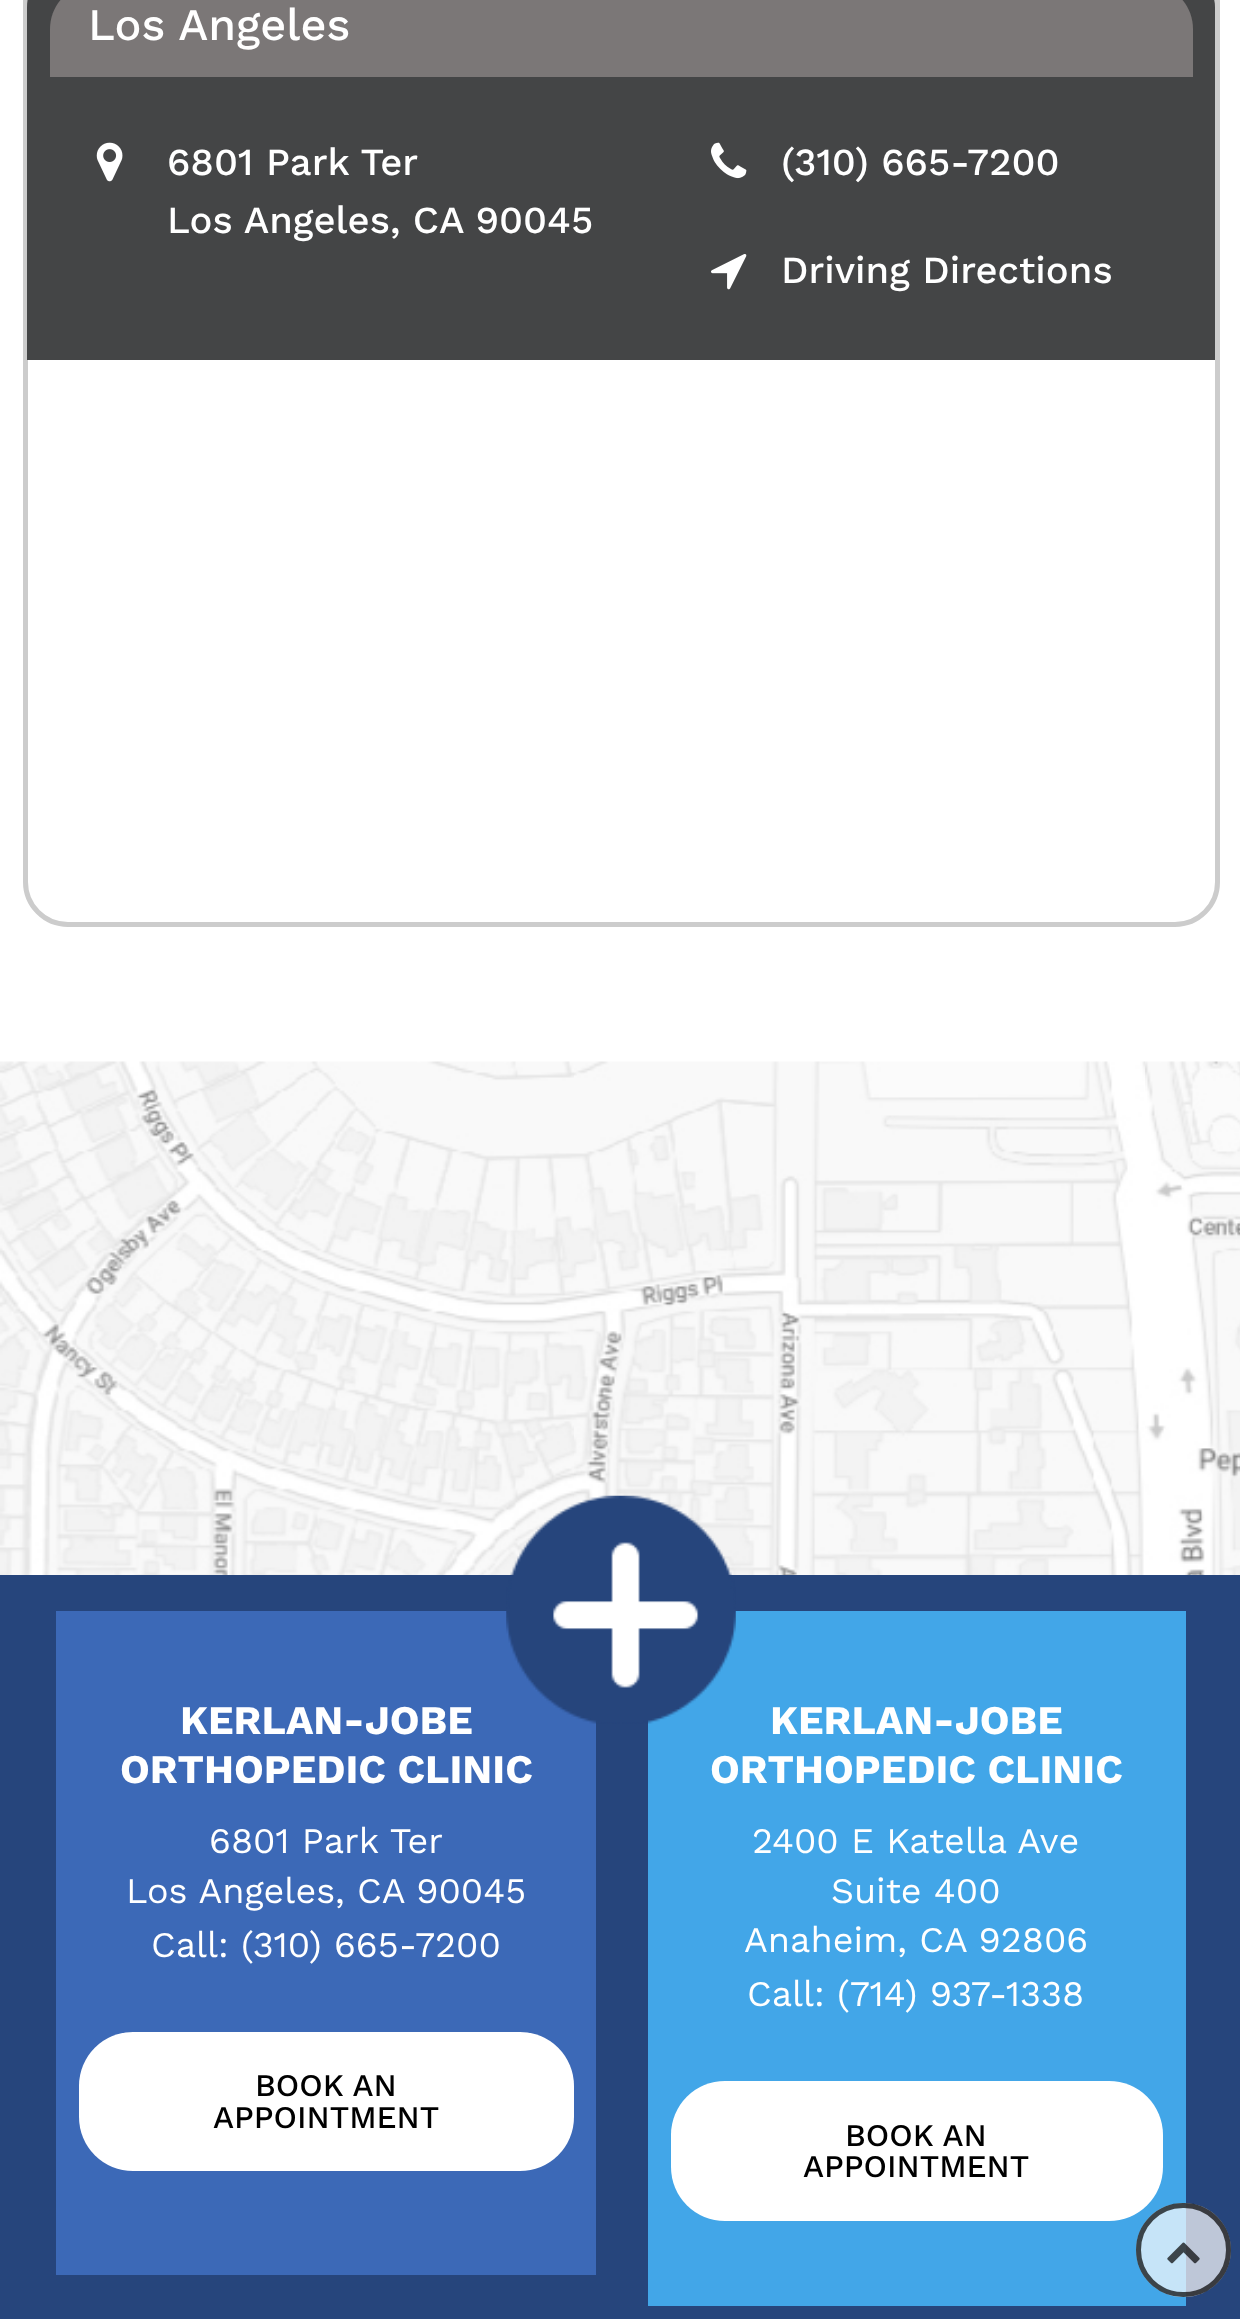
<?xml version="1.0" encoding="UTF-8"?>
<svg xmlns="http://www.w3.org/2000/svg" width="1240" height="2319">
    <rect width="100%" height="100%" fill="#FFFFFF"/>
    <rect x="25.5" y="-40.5" width="1192" height="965" rx="42.5" fill="none" stroke="#CCCCCC" stroke-width="5"/>
    <path d="M 72 -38 H 1170 C 1195 -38 1215 -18 1215 7 V 360 H 27 V 7 C 27 -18 47 -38 72 -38 Z" fill="#444546"/>
    <path d="M 95 -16 H 1148 C 1173 -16 1193 4 1193 29 V 77 H 50 V 29 C 50 4 70 -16 95 -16 Z" fill="#7B7777"/>
    <text x="88" y="40" font-family="Work Sans" font-size="45" font-weight="500" fill="#FFFFFF">Los Angeles</text>
    <image x="96" y="142" width="27" height="40" href="img_01.png"/>
    <text font-family="Work Sans" font-size="38.25" font-weight="500" fill="#FFFFFF">
        <tspan x="167" y="175">6801 Park Ter</tspan>
        <tspan x="167" y="233">Los Angeles, CA 90045</tspan>
    </text>
    <image x="711" y="142" width="36" height="37" href="img_02.png"/>
    <text x="781" y="175" font-family="Work Sans" font-size="38.25" font-weight="500" fill="#FFFFFF">(310) 665-7200</text>
    <image x="711" y="254" width="36" height="36" href="img_03.png"/>
    <text x="781" y="283" font-family="Work Sans" font-size="38.25" font-weight="500" fill="#FFFFFF">Driving Directions</text>
    <image x="0" y="1061" width="1240" height="514" href="img_04.png"/>
    <rect x="0" y="1575" width="1240" height="744" fill="#26457C"/>
    <rect x="56" y="1611" width="540" height="664" fill="#3C69B7"/>
    <rect x="648" y="1611" width="538" height="695" fill="#42A6E8"/>
    <image x="506" y="1495" width="230" height="229" href="img_05.png"/>
    <text x="180" y="1734" font-family="Work Sans" font-size="40.5" font-weight="700" fill="#FFFFFF">KERLAN-JOBE</text>
    <text x="120" y="1783" font-family="Work Sans" font-size="40.5" font-weight="700" fill="#FFFFFF">ORTHOPEDIC CLINIC</text>
    <text x="209" y="1853" font-family="Work Sans" font-size="36" fill="#FFFFFF">6801 Park Ter</text>
    <text x="126" y="1903" font-family="Work Sans" font-size="36" fill="#FFFFFF">Los Angeles, CA 90045</text>
    <text x="151" y="1957" font-family="Work Sans" font-size="36" fill="#FFFFFF">Call: (310) 665-7200</text>
    <rect x="79" y="2032" width="495" height="139" rx="54" fill="#FFFFFF"/>
    <text x="255" y="2096" font-family="Work Sans" font-size="31.5" font-weight="500" fill="#000000">BOOK AN</text>
    <text x="213" y="2128" font-family="Work Sans" font-size="31.5" font-weight="500" fill="#000000">APPOINTMENT</text>
    <text x="770" y="1734" font-family="Work Sans" font-size="40.5" font-weight="700" fill="#FFFFFF">KERLAN-JOBE</text>
    <text x="710" y="1783" font-family="Work Sans" font-size="40.5" font-weight="700" fill="#FFFFFF">ORTHOPEDIC CLINIC</text>
    <text x="752" y="1853" font-family="Work Sans" font-size="36" fill="#FFFFFF">2400 E Katella Ave</text>
    <text x="831" y="1903" font-family="Work Sans" font-size="36" fill="#FFFFFF">Suite 400</text>
    <text x="744" y="1952" font-family="Work Sans" font-size="36" fill="#FFFFFF">Anaheim, CA 92806</text>
    <text x="747" y="2006" font-family="Work Sans" font-size="36" fill="#FFFFFF">Call: (714) 937-1338</text>
    <rect x="671" y="2081" width="492" height="140" rx="54" fill="#FFFFFF"/>
    <text x="845" y="2146" font-family="Work Sans" font-size="31.5" font-weight="500" fill="#000000">BOOK AN</text>
    <text x="803" y="2177" font-family="Work Sans" font-size="31.5" font-weight="500" fill="#000000">APPOINTMENT</text>
    <rect x="1136" y="2203" width="95" height="94" rx="47" fill="#FFFFFF" fill-opacity="0.7"/>
    <rect x="1138.5" y="2205.5" width="90" height="89" rx="44.5" fill="none" stroke="#000000" stroke-opacity="0.7" stroke-width="5"/>
    <image x="1167" y="2242" width="33" height="22" href="img_06.png"/>
</svg>
